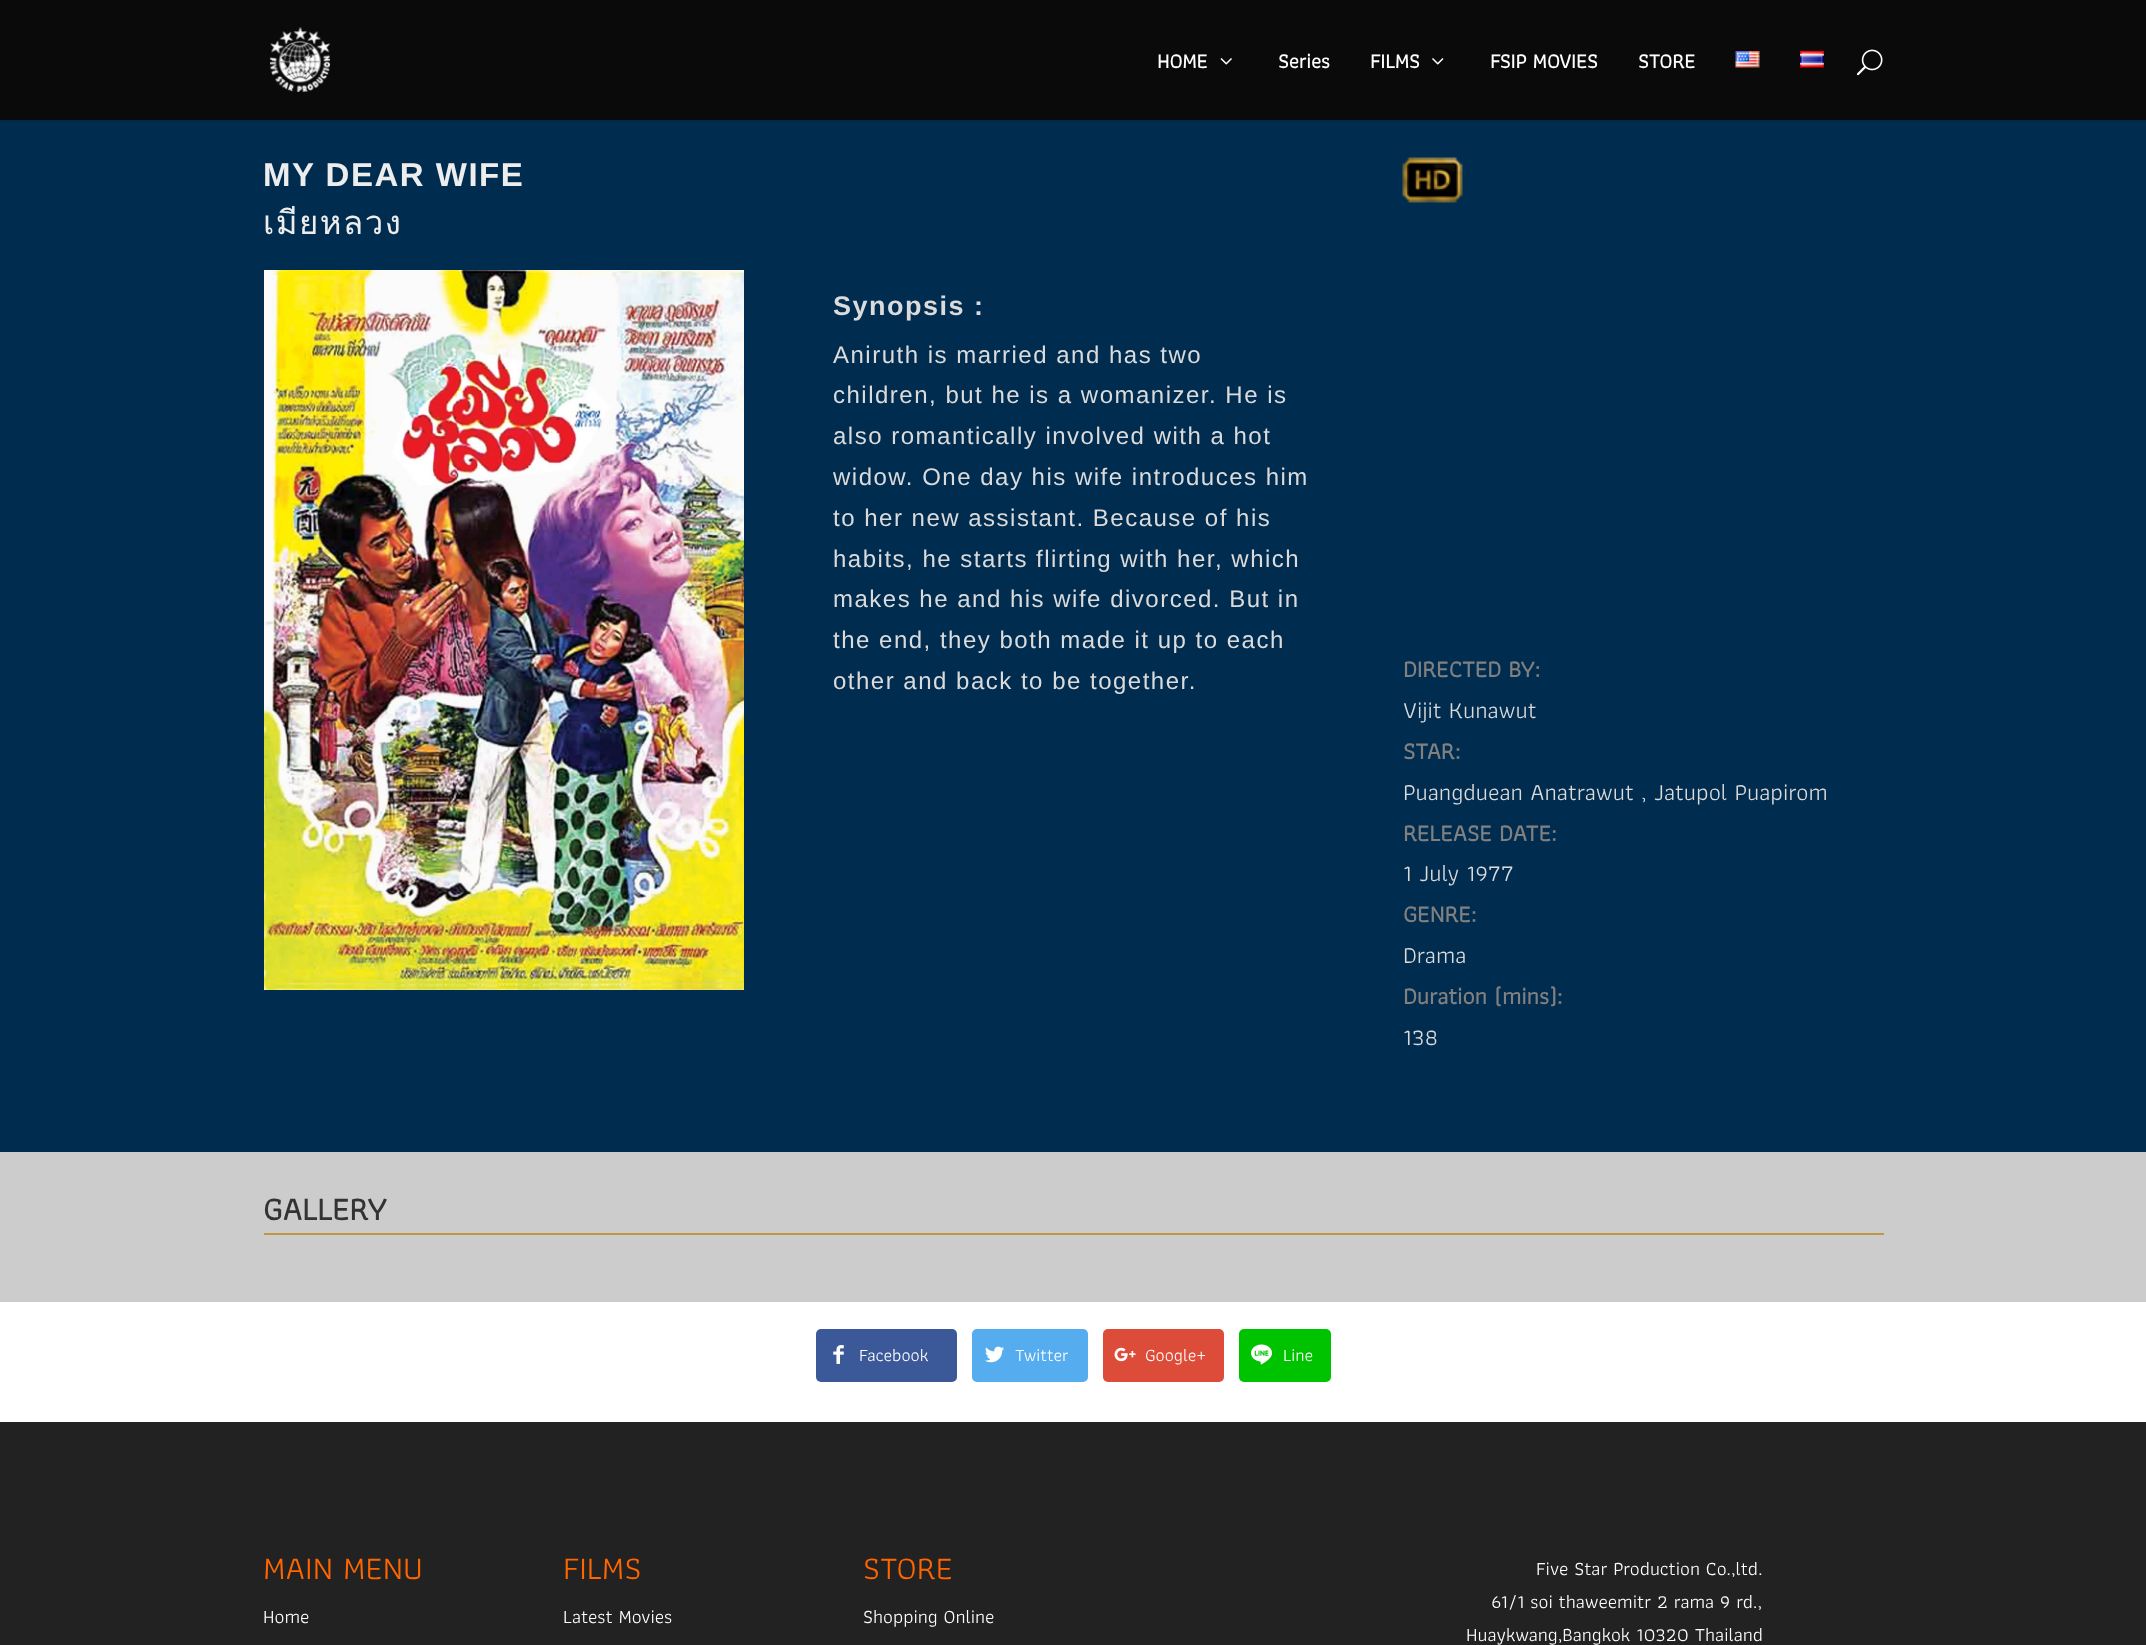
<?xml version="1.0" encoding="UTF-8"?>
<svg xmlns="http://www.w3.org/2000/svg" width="2146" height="1645">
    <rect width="100%" height="100%" fill="#FFFFFF"/>
    <path d="M 0 120 V 122 H 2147 V 2 H 2146 V 120 Z" fill="#002847"/>
    <rect x="0" y="0" width="2146" height="120" fill="#0A0A0A"/>
    <image x="270" y="27" width="60" height="65" href="img_01.png"/>
    <text x="1157" y="68" font-family="Athiti" font-size="21" font-weight="700" fill="#FFFFFF">HOME</text>
    <image x="1220" y="58" width="12" height="7" href="img_02.png"/>
    <text x="1278" y="68" font-family="Athiti" font-size="21" font-weight="700" fill="#FFFFFF">Series</text>
    <text x="1370" y="68" font-family="Athiti" font-size="21" font-weight="700" fill="#FFFFFF">FILMS</text>
    <image x="1432" y="58" width="12" height="7" href="img_03.png"/>
    <text x="1490" y="68" font-family="Athiti" font-size="21" font-weight="700" fill="#FFFFFF">FSIP MOVIES</text>
    <text x="1638" y="68" font-family="Athiti" font-size="21" font-weight="700" fill="#FFFFFF">STORE</text>
    <image x="1735" y="51" width="25" height="17" href="img_04.png"/>
    <image x="1800" y="51" width="24" height="17" href="img_05.png"/>
    <image x="1856" y="49" width="27" height="27" href="img_06.png"/>
    <rect x="0" y="122" width="2146" height="1030" fill="#002C4F"/>
    <text x="263" y="186" font-family="Liberation Sans" font-size="33" font-weight="700" letter-spacing="1.5" fill="#EDEDED">MY DEAR WIFE</text>
    <text x="263" y="234" font-family="Loma" font-size="33" letter-spacing="1.5" fill="#EDEDED">เมียหลวง</text>
    <image x="264" y="270" width="480" height="720" href="img_07.png"/>
    <text x="833" y="315" font-family="Liberation Sans" font-size="27" font-weight="700" letter-spacing="1.5" fill="#DBDBDB">Synopsis :</text>
    <text font-family="Liberation Sans" font-size="24" letter-spacing="1.5" fill="#DBDBDB">
        <tspan x="833" y="363">Aniruth is married and has two</tspan>
        <tspan x="833" y="403">children, but he is a womanizer. He is</tspan>
        <tspan x="833" y="444">also romantically involved with a hot</tspan>
        <tspan x="833" y="485">widow. One day his wife introduces him</tspan>
        <tspan x="833" y="526">to her new assistant. Because of his</tspan>
        <tspan x="833" y="567">habits, he starts flirting with her, which</tspan>
        <tspan x="833" y="607">makes he and his wife divorced. But in</tspan>
        <tspan x="833" y="648">the end, they both made it up to each</tspan>
        <tspan x="833" y="689">other and back to be together.</tspan>
    </text>
    <image x="1402" y="157" width="61" height="46" href="img_08.png"/>
    <text x="1403" y="677" font-family="Athiti" font-size="24" font-weight="700" fill="#808080">DIRECTED BY:</text>
    <text x="1403" y="718" font-family="Athiti" font-size="24" fill="#DBDBDB">Vijit Kunawut</text>
    <text x="1403" y="759" font-family="Athiti" font-size="24" font-weight="700" fill="#808080">STAR:</text>
    <text x="1403" y="800" font-family="Athiti" font-size="24" fill="#DBDBDB">Puangduean Anatrawut , Jatupol Puapirom</text>
    <text x="1403" y="841" font-family="Athiti" font-size="24" font-weight="700" fill="#808080">RELEASE DATE:</text>
    <text x="1403" y="881" font-family="Athiti" font-size="24" fill="#DBDBDB">1 July 1977</text>
    <text x="1403" y="922" font-family="Athiti" font-size="24" font-weight="700" fill="#808080">GENRE:</text>
    <text x="1403" y="963" font-family="Athiti" font-size="24" fill="#DBDBDB">Drama</text>
    <text x="1403" y="1004" font-family="Athiti" font-size="24" font-weight="700" fill="#808080">Duration (mins):</text>
    <text x="1403" y="1045" font-family="Athiti" font-size="24" fill="#DBDBDB">138</text>
    <rect x="0" y="1152" width="2146" height="150" fill="#CCCCCC"/>
    <text x="263" y="1220" font-family="Athiti" font-size="33" font-weight="700" fill="#333333">GALLERY</text>
    <rect x="264" y="1233" width="1620" height="2" fill="#BF983F"/>
    <rect x="816" y="1329" width="141" height="53" rx="5" fill="#3B5998"/>
    <image x="833" y="1345" width="11" height="19" href="img_09.png"/>
    <text x="859" y="1361" font-family="Athiti" font-size="18" fill="#FFFFFF">Facebook</text>
    <rect x="972" y="1329" width="116" height="53" rx="5" fill="#55ACEE"/>
    <image x="985" y="1346" width="19" height="17" href="img_10.png"/>
    <text x="1015" y="1361" font-family="Athiti" font-size="18" fill="#FFFFFF">Twitter</text>
    <rect x="1103" y="1329" width="121" height="53" rx="5" fill="#DD4B39"/>
    <image x="1114" y="1347" width="22" height="15" href="img_11.png"/>
    <text x="1145" y="1361" font-family="Athiti" font-size="18" fill="#FFFFFF">Google+</text>
    <rect x="1239" y="1329" width="92" height="53" rx="5" fill="#00C300"/>
    <image x="1251" y="1344" width="21" height="21" href="img_12.png"/>
    <text x="1283" y="1361" font-family="Athiti" font-size="18" fill="#FFFFFF">Line</text>
    <rect x="0" y="1422" width="2146" height="223" fill="#222222"/>
    <text x="263" y="1579" font-family="Athiti" font-size="33" fill="#FF6600">MAIN MENU</text>
    <text x="263" y="1623" font-family="Athiti" font-size="19.5" fill="#FFFFFF">Home</text>
    <text x="563" y="1579" font-family="Athiti" font-size="33" fill="#FF6600">FILMS</text>
    <text x="563" y="1623" font-family="Athiti" font-size="19.5" fill="#FFFFFF">Latest Movies</text>
    <text x="863" y="1579" font-family="Athiti" font-size="33" fill="#FF6600">STORE</text>
    <text x="863" y="1623" font-family="Athiti" font-size="19.5" fill="#FFFFFF">Shopping Online</text>
    <text x="1536" y="1575" font-family="Athiti" font-size="19.5" fill="#FFFFFF">Five Star Production Co.,ltd.</text>
    <text x="1491" y="1608" font-family="Athiti" font-size="19.5" fill="#FFFFFF">61/1 soi thaweemitr 2 rama 9 rd.,</text>
    <text x="1466" y="1641" font-family="Athiti" font-size="19.5" fill="#FFFFFF">Huaykwang,Bangkok 10320 Thailand</text>
</svg>
